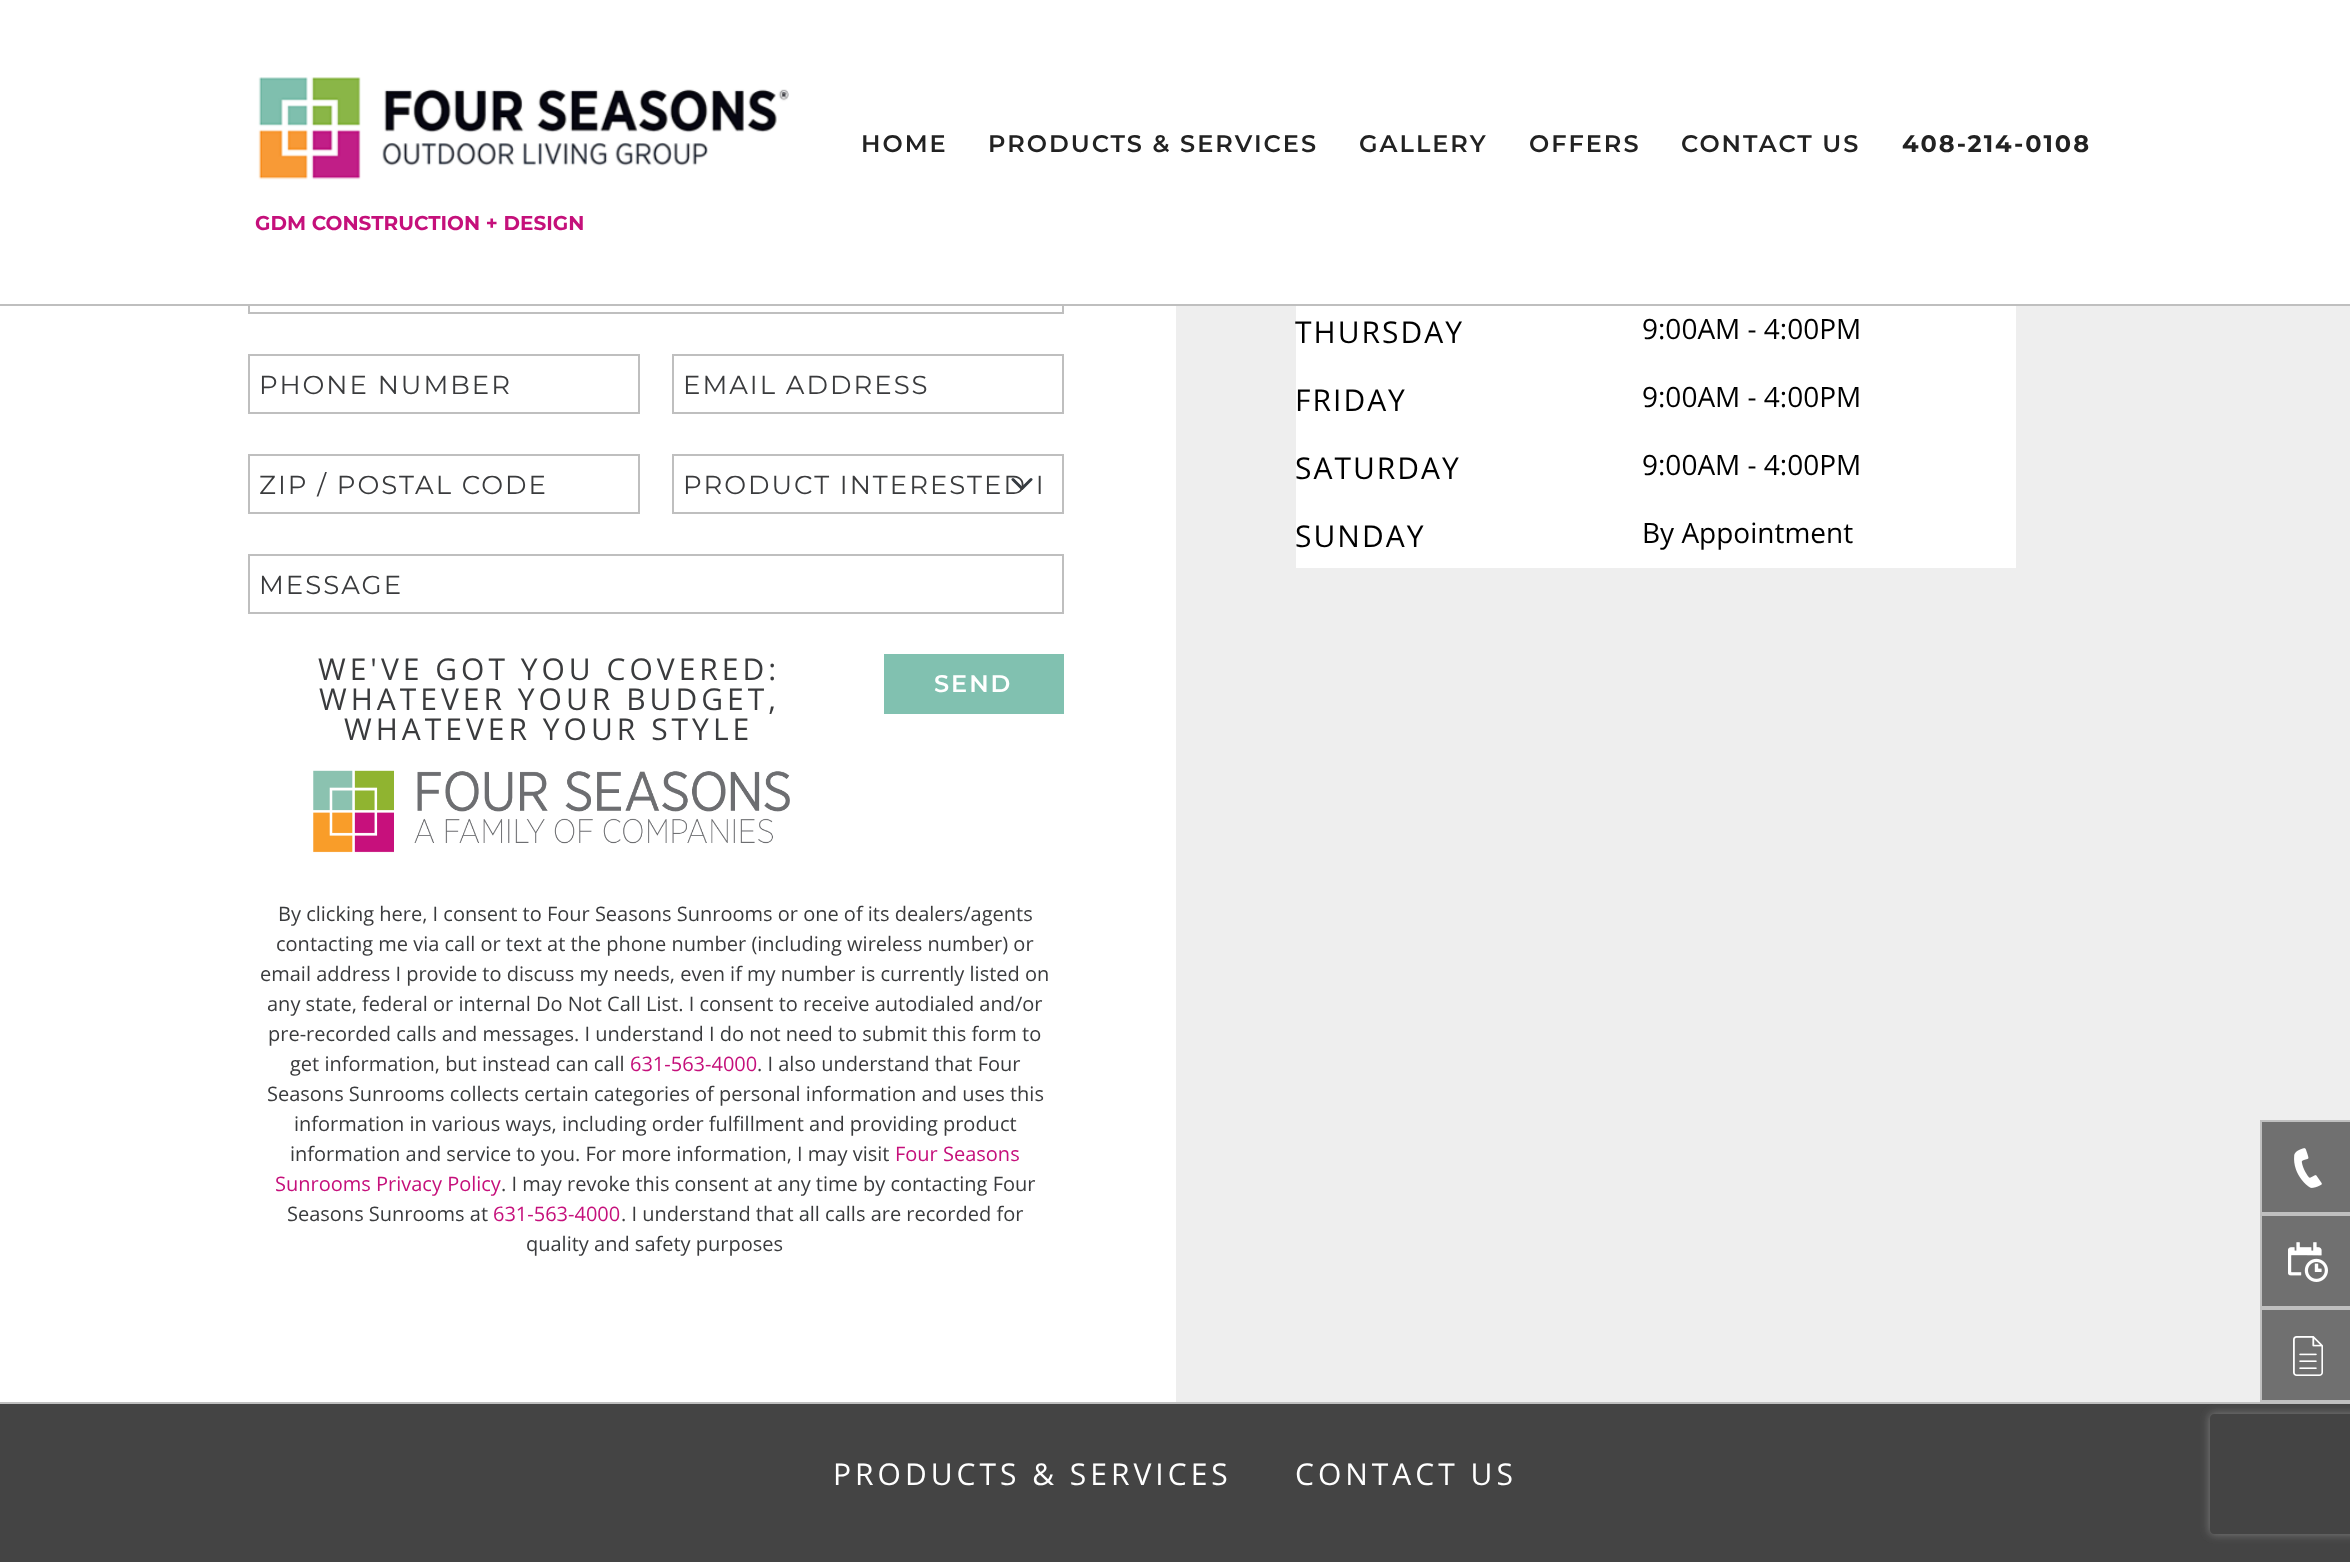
<?xml version="1.0" encoding="UTF-8"?>
<svg xmlns="http://www.w3.org/2000/svg" width="2350" height="1562">
    <defs>
        <clipPath id="clip1"><path d="M 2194 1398 H 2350 V 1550 H 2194 Z M 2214 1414 H 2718 C 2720 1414 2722 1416 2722 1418 V 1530 C 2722 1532 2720 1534 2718 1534 H 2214 C 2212 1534 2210 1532 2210 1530 V 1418 C 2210 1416 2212 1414 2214 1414 Z" clip-rule="evenodd"/></clipPath>
        <filter id="blur1" x="-50%" y="-200%" width="200%" height="500%"><feGaussianBlur stdDeviation="5"/></filter>
    </defs>
    <rect width="100%" height="100%" fill="#FFFFFF"/>
    <rect x="249" y="255" width="814" height="58" fill="none" stroke="#BFBFBF" stroke-width="2"/>
    <rect x="248" y="254" width="816" height="50" fill="#FFFFFF"/>
    <rect x="0" y="304" width="2350" height="2" fill="#BFBFBF"/>
    <text x="861" y="152" font-family="Montserrat" font-size="24" font-weight="600" letter-spacing="2" fill="#222222">HOME</text>
    <text x="988" y="152" font-family="Montserrat" font-size="24" font-weight="600" letter-spacing="2" fill="#222222">PRODUCTS &amp; SERVICES</text>
    <text x="1359" y="152" font-family="Montserrat" font-size="24" font-weight="600" letter-spacing="2" fill="#222222">GALLERY</text>
    <text x="1529" y="152" font-family="Montserrat" font-size="24" font-weight="600" letter-spacing="2" fill="#222222">OFFERS</text>
    <text x="1681" y="152" font-family="Montserrat" font-size="24" font-weight="600" letter-spacing="2" fill="#222222">CONTACT US</text>
    <text x="1902" y="152" font-family="Montserrat" font-size="24" font-weight="700" letter-spacing="2" fill="#222222">408-214-0108</text>
    <image x="258" y="77" width="531" height="103" href="img_01.png"/>
    <text x="255" y="230" font-family="Montserrat" font-size="20" font-weight="700" fill="#C5107B">GDM CONSTRUCTION + DESIGN</text>
    <rect x="249" y="355" width="390" height="58" fill="none" stroke="#BFBFBF" stroke-width="2"/>
    <text x="259" y="394" font-family="Montserrat" font-size="26" letter-spacing="2" fill="#3A3B3D">PHONE NUMBER</text>
    <rect x="673" y="355" width="390" height="58" fill="none" stroke="#BFBFBF" stroke-width="2"/>
    <text x="683" y="394" font-family="Montserrat" font-size="26" letter-spacing="2" fill="#3A3B3D">EMAIL ADDRESS</text>
    <rect x="249" y="455" width="390" height="58" fill="none" stroke="#BFBFBF" stroke-width="2"/>
    <text x="259" y="494" font-family="Montserrat" font-size="26" letter-spacing="2" fill="#3A3B3D">ZIP / POSTAL CODE</text>
    <path d="M 1013 479.5 L 1022 488.5 L 1031 479.5" fill="none" stroke="#343A40" stroke-width="3" stroke-linecap="round" stroke-linejoin="round"/>
    <rect x="673" y="455" width="390" height="58" fill="none" stroke="#BFBFBF" stroke-width="2"/>
    <text x="683" y="494" font-family="Montserrat" font-size="26" letter-spacing="2" fill="#3A3B3D">PRODUCT INTERESTED I</text>
    <rect x="249" y="555" width="814" height="58" fill="none" stroke="#BFBFBF" stroke-width="2"/>
    <text x="259" y="594" font-family="Montserrat" font-size="26" letter-spacing="2" fill="#3A3B3D">MESSAGE</text>
    <text x="318" y="680" font-family="Open Sans" font-size="30" letter-spacing="4" fill="#3A3B3D">WE'VE GOT YOU COVERED:</text>
    <text x="319" y="710" font-family="Open Sans" font-size="30" letter-spacing="4" fill="#3A3B3D">WHATEVER YOUR BUDGET,</text>
    <text x="344" y="740" font-family="Open Sans" font-size="30" letter-spacing="4" fill="#3A3B3D">WHATEVER YOUR STYLE</text>
    <image x="313" y="770" width="477" height="83" href="img_02.png"/>
    <rect x="885" y="655" width="178" height="58" fill="#81C1B0" stroke="#81C1B0" stroke-width="2"/>
    <text x="934" y="692" font-family="Montserrat" font-size="24" font-weight="600" letter-spacing="2" fill="#FFFFFF">SEND</text>
    <text x="278" y="921" font-family="Open Sans" font-size="20" fill="#3A3B3D">By clicking here, I consent to Four Seasons Sunrooms or one of its dealers/agents</text>
    <text x="276" y="951" font-family="Open Sans" font-size="20" fill="#3A3B3D">contacting me via call or text at the phone number (including wireless number) or</text>
    <text x="260" y="981" font-family="Open Sans" font-size="20" fill="#3A3B3D">email address I provide to discuss my needs, even if my number is currently listed on</text>
    <text x="267" y="1011" font-family="Open Sans" font-size="20" fill="#3A3B3D">any state, federal or internal Do Not Call List. I consent to receive autodialed and/or</text>
    <text x="268" y="1041" font-family="Open Sans" font-size="20" fill="#3A3B3D">pre-recorded calls and messages. I understand I do not need to submit this form to</text>
    <text x="290" y="1071" font-family="Open Sans" font-size="20" fill="#3A3B3D">get information, but instead can call</text>
    <text x="630" y="1071" font-family="Open Sans" font-size="20" fill="#C5107B">631-563-4000</text>
    <text x="757" y="1071" font-family="Open Sans" font-size="20" fill="#3A3B3D">. I also understand that Four</text>
    <text x="267" y="1101" font-family="Open Sans" font-size="20" fill="#3A3B3D">Seasons Sunrooms collects certain categories of personal information and uses this</text>
    <text x="294" y="1131" font-family="Open Sans" font-size="20" fill="#3A3B3D">information in various ways, including order fulfillment and providing product</text>
    <text x="290" y="1161" font-family="Open Sans" font-size="20" fill="#3A3B3D">information and service to you. For more information, I may visit</text>
    <text x="895" y="1161" font-family="Open Sans" font-size="20" fill="#C5107B">Four Seasons</text>
    <text x="275" y="1191" font-family="Open Sans" font-size="20" fill="#C5107B">Sunrooms Privacy Policy</text>
    <text x="501" y="1191" font-family="Open Sans" font-size="20" fill="#3A3B3D">. I may revoke this consent at any time by contacting Four</text>
    <text x="287" y="1221" font-family="Open Sans" font-size="20" fill="#3A3B3D">Seasons Sunrooms at</text>
    <text x="493" y="1221" font-family="Open Sans" font-size="20" fill="#C5107B">631-563-4000</text>
    <text x="621" y="1221" font-family="Open Sans" font-size="20" fill="#3A3B3D">. I understand that all calls are recorded for</text>
    <text x="526" y="1251" font-family="Open Sans" font-size="20" fill="#3A3B3D">quality and safety purposes</text>
    <rect x="1176" y="306" width="1174" height="1096" fill="#EEEEEE"/>
    <rect x="1296" y="306" width="720" height="58" fill="#FFFFFF"/>
    <text x="1295" y="343" font-family="Open Sans" font-size="30" letter-spacing="2" fill="#000000">THURSDAY</text>
    <text x="1642" y="339" font-family="Open Sans" font-size="28" fill="#000000">9:00AM - 4:00PM</text>
    <rect x="1296" y="364" width="720" height="68" fill="#FFFFFF"/>
    <text x="1295" y="411" font-family="Open Sans" font-size="30" letter-spacing="2" fill="#000000">FRIDAY</text>
    <text x="1642" y="407" font-family="Open Sans" font-size="28" fill="#000000">9:00AM - 4:00PM</text>
    <rect x="1296" y="432" width="720" height="68" fill="#FFFFFF"/>
    <text x="1295" y="479" font-family="Open Sans" font-size="30" letter-spacing="2" fill="#000000">SATURDAY</text>
    <text x="1642" y="475" font-family="Open Sans" font-size="28" fill="#000000">9:00AM - 4:00PM</text>
    <rect x="1296" y="500" width="720" height="68" fill="#FFFFFF"/>
    <text x="1295" y="547" font-family="Open Sans" font-size="30" letter-spacing="2" fill="#000000">SUNDAY</text>
    <text x="1642" y="543" font-family="Open Sans" font-size="28" fill="#000000">By Appointment</text>
    <rect x="2260" y="1120" width="90" height="2" fill="#BFBFBF"/>
    <rect x="2260" y="1212" width="90" height="4" fill="#BFBFBF"/>
    <rect x="2260" y="1120" width="2" height="94" fill="#BFBFBF"/>
    <rect x="2262" y="1122" width="88" height="90" fill="#707070"/>
    <image x="2294" y="1148" width="28" height="40" href="img_03.png"/>
    <rect x="2260" y="1306" width="90" height="4" fill="#BFBFBF"/>
    <rect x="2260" y="1214" width="2" height="94" fill="#BFBFBF"/>
    <rect x="2262" y="1216" width="88" height="90" fill="#707070"/>
    <image x="2288" y="1242" width="40" height="40" href="img_04.png"/>
    <rect x="2260" y="1400" width="90" height="2" fill="#BFBFBF"/>
    <rect x="2260" y="1308" width="2" height="94" fill="#BFBFBF"/>
    <rect x="2262" y="1310" width="88" height="90" fill="#707070"/>
    <image x="2293" y="1336" width="30" height="40" href="img_05.png"/>
    <rect x="0" y="1402" width="2350" height="2" fill="#BFBFBF"/>
    <rect x="0" y="1404" width="2350" height="158" fill="#444444"/>
    <text x="833" y="1485" font-family="Open Sans" font-size="30" letter-spacing="4" fill="#FFFFFF">PRODUCTS &amp; SERVICES</text>
    <text x="1295" y="1485" font-family="Open Sans" font-size="30" letter-spacing="4" fill="#FFFFFF">CONTACT US</text>
    <g clip-path="url(#clip1)">
        <rect x="2210" y="1414" width="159" height="120" rx="4" fill="#808080" filter="url(#blur1)"/>
    </g>
</svg>
